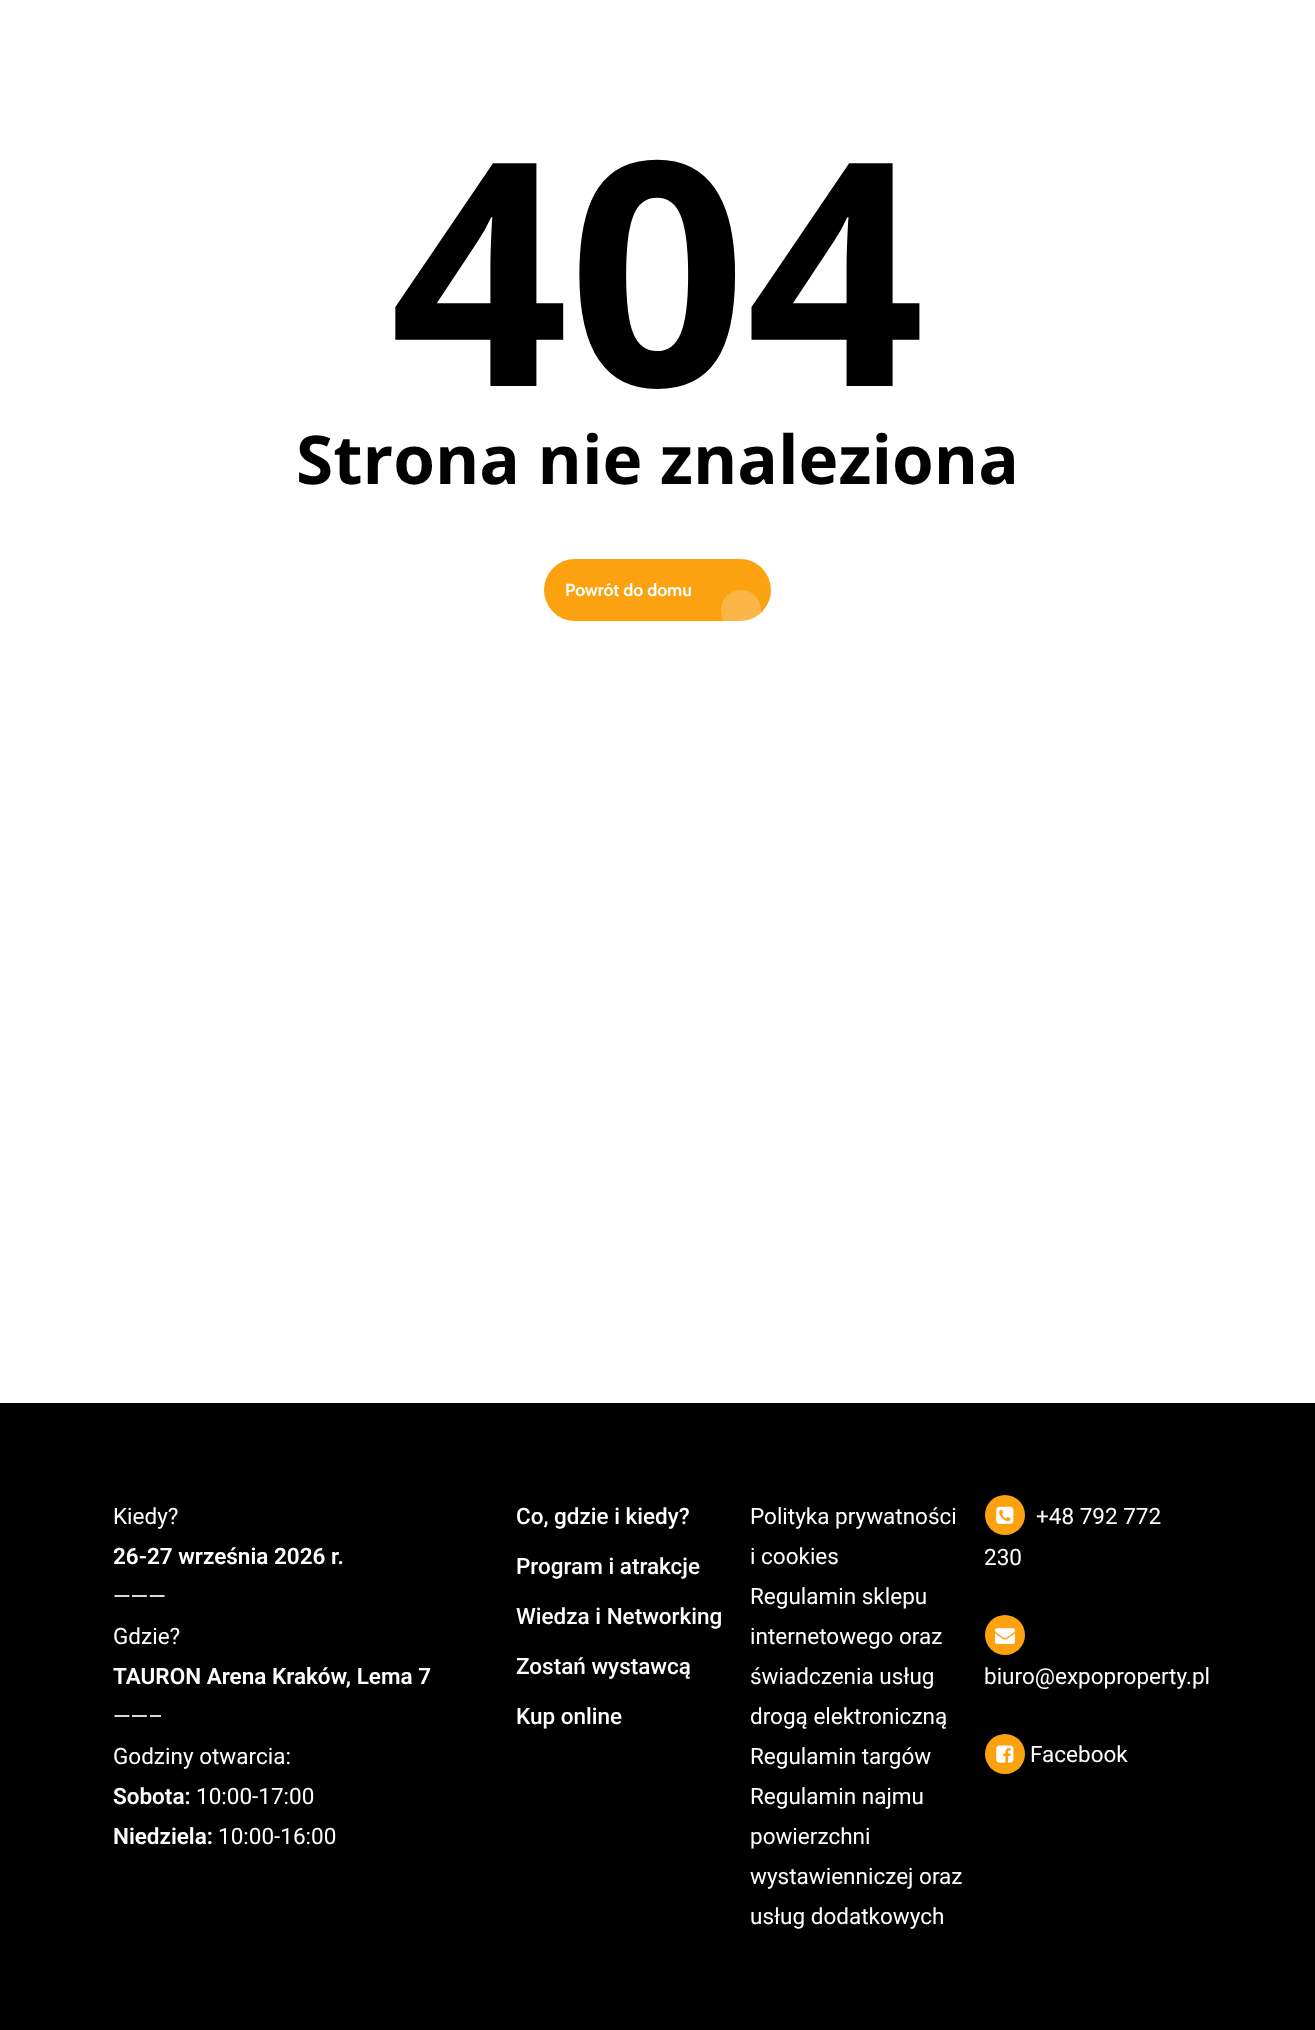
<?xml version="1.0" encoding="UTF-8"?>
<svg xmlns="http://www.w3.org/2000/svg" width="1315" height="2030">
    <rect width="100%" height="100%" fill="#FFFFFF"/>
    <text x="390" y="386" font-family="Open Sans" font-size="312" font-weight="700" fill="#000000">404</text>
    <text x="296" y="484" font-family="Open Sans" font-size="67.5" font-weight="700" fill="#000000">Strona nie znaleziona</text>
    <rect x="544" y="559" width="227" height="62" rx="31" fill="#FCA211"/>
    <text x="565" y="596" font-family="Cabin" font-size="17.5" font-weight="700" fill="#FFFFFF">Powrót do domu</text>
    <circle cx="741" cy="610" r="20" fill="#FFFFFF" fill-opacity="0.22"/>
    <rect x="0" y="1403" width="1315" height="627" fill="#000000"/>
    <text x="113" y="1524" font-family="Roboto" font-size="22.5" fill="#FFFFFF">Kiedy?</text>
    <text x="113" y="1564" font-family="Roboto" font-size="22.5" font-weight="600" fill="#FFFFFF">26-27 września 2026 r.</text>
    <text font-family="Roboto" font-size="22.5" fill="#FFFFFF">
        <tspan x="113" y="1604">———</tspan>
        <tspan x="113" y="1644">Gdzie?</tspan>
    </text>
    <text x="113" y="1684" font-family="Roboto" font-size="22.5" font-weight="600" fill="#FFFFFF">TAURON Arena Kraków, Lema 7</text>
    <text font-family="Roboto" font-size="22.5" fill="#FFFFFF">
        <tspan x="113" y="1724">——–</tspan>
        <tspan x="113" y="1764">Godziny otwarcia:</tspan>
    </text>
    <text x="113" y="1804" font-family="Roboto" font-size="22.5" font-weight="600" fill="#FFFFFF">Sobota:</text>
    <text x="196" y="1804" font-family="Roboto" font-size="22.5" fill="#FFFFFF">10:00-17:00</text>
    <text x="113" y="1844" font-family="Roboto" font-size="22.5" font-weight="600" fill="#FFFFFF">Niedziela:</text>
    <text x="218" y="1844" font-family="Roboto" font-size="22.5" fill="#FFFFFF">10:00-16:00</text>
    <text x="516" y="1524" font-family="Roboto" font-size="22.5" font-weight="500" fill="#FFFFFF">Co, gdzie i kiedy?</text>
    <text x="516" y="1574" font-family="Roboto" font-size="22.5" font-weight="500" fill="#FFFFFF">Program i atrakcje</text>
    <text x="516" y="1624" font-family="Roboto" font-size="22.5" font-weight="500" fill="#FFFFFF">Wiedza i Networking</text>
    <text x="516" y="1674" font-family="Roboto" font-size="22.5" font-weight="500" fill="#FFFFFF">Zostań wystawcą</text>
    <text x="516" y="1724" font-family="Roboto" font-size="22.5" font-weight="500" fill="#FFFFFF">Kup online</text>
    <text font-family="Roboto" font-size="22.5" fill="#FFFFFF">
        <tspan x="750" y="1524">Polityka prywatności</tspan>
        <tspan x="750" y="1564">i cookies</tspan>
        <tspan x="750" y="1604">Regulamin sklepu</tspan>
        <tspan x="750" y="1644">internetowego oraz</tspan>
        <tspan x="750" y="1684">świadczenia usług</tspan>
        <tspan x="750" y="1724">drogą elektroniczną</tspan>
        <tspan x="750" y="1764">Regulamin targów</tspan>
        <tspan x="750" y="1804">Regulamin najmu</tspan>
        <tspan x="750" y="1844">powierzchni</tspan>
        <tspan x="750" y="1884">wystawienniczej oraz</tspan>
        <tspan x="750" y="1924">usług dodatkowych</tspan>
    </text>
    <circle cx="1005" cy="1515" r="20" fill="#FCA211"/>
    <image x="996" y="1506" width="18" height="18" href="img_01.png"/>
    <text x="1036" y="1524" font-family="Roboto" font-size="22.5" fill="#FFFFFF">+48 792 772</text>
    <text x="984" y="1565" font-family="Roboto" font-size="22.5" fill="#FFFFFF">230</text>
    <circle cx="1005" cy="1635" r="20" fill="#FCA211"/>
    <image x="995" y="1628" width="20" height="16" href="img_02.png"/>
    <text x="984" y="1684" font-family="Roboto" font-size="22.5" fill="#FFFFFF">biuro@expoproperty.pl</text>
    <circle cx="1005" cy="1754" r="20" fill="#FCA211"/>
    <image x="996" y="1745" width="18" height="18" href="img_03.png"/>
    <text x="1030" y="1762" font-family="Roboto" font-size="22.5" fill="#FFFFFF">Facebook</text>
</svg>
